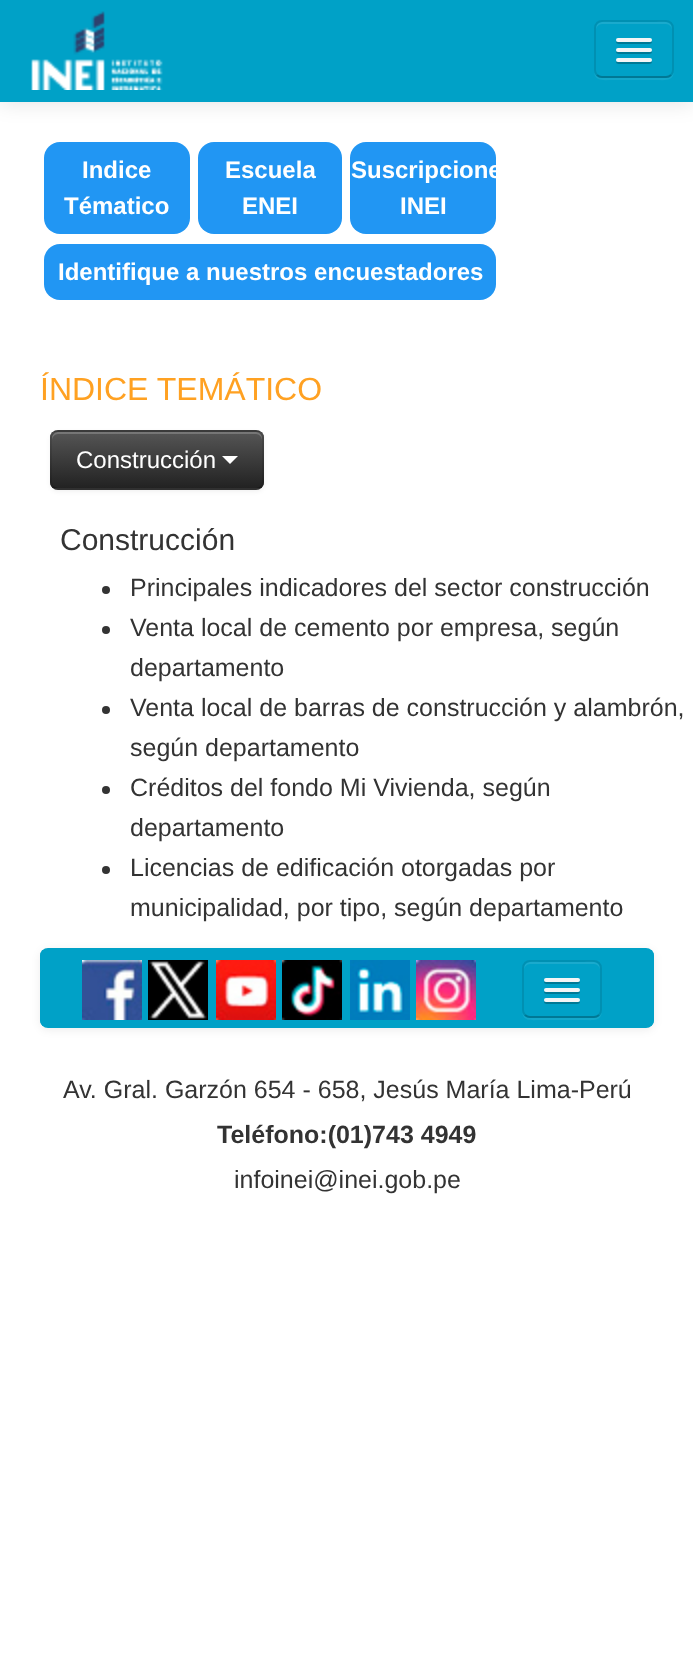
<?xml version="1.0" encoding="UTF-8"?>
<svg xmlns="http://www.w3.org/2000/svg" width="693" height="1662">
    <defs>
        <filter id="blur1" x="-50%" y="-200%" width="200%" height="500%"><feGaussianBlur stdDeviation="10"/></filter>
        <clipPath id="clip1"><rect x="594" y="20" width="80" height="58" rx="8"/></clipPath>
        <clipPath id="clip2"><rect x="350" y="142" width="146" height="92" rx="16"/></clipPath>
        <filter id="blur2" x="-50%" y="-200%" width="200%" height="500%"><feGaussianBlur stdDeviation="2"/></filter>
        <clipPath id="clip3"><rect x="50" y="430" width="214" height="60" rx="8"/></clipPath>
        <linearGradient id="g1" gradientUnits="userSpaceOnUse" x1="157" y1="432" x2="157" y2="488"><stop offset="0" stop-color="#555555"/><stop offset="1" stop-color="#222222"/></linearGradient>
        <filter id="blur3" x="-50%" y="-200%" width="200%" height="500%"><feGaussianBlur stdDeviation="4"/></filter>
        <clipPath id="clip4"><rect x="40" y="948" width="614" height="80" rx="8"/></clipPath>
        <clipPath id="clip5"><rect x="522" y="960" width="80" height="58" rx="8"/></clipPath>
    </defs>
    <rect width="100%" height="100%" fill="#FFFFFF"/>
    <rect x="0" y="2" width="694" height="102" fill="#000000" fill-opacity="0.1" filter="url(#blur1)"/>
    <rect x="0" y="0" width="693" height="102" fill="#00A1C7"/>
    <image x="31" y="11" width="132" height="79" href="img_01.png"/>
    <path d="M 594 70 C 594 82 603 80 613 80 H 655 C 665 80 674 82 674 70 C 674 74 670 78 666 78 H 602 C 598 78 594 74 594 70 Z" fill="#13A8CB"/>
    <rect x="594" y="20" width="80" height="58" rx="8" fill="#00A1C7"/>
    <g clip-path="url(#clip1)">
        <rect x="594" y="22" width="80" height="54" fill="#00A1C7"/>
    </g>
    <path d="M 602 24 H 666 C 669 24 672 27 672 30 C 672 20 664 22 655 22 H 613 C 604 22 596 20 596 30 C 596 27 599 24 602 24 Z" fill="#1AAACD"/>
    <path d="M 671 75 C 669.5 76.5 668 77 666 77 H 602 C 600 77 598.5 76.5 597 75" fill="none" stroke="#000000" stroke-opacity="0.25" stroke-width="2"/>
    <path d="M 597 75 C 595.5 73.5 595 72 595 70 V 28 C 595 26 595.5 24.5 597 23 C 598.5 21.5 600 21 602 21 H 666 C 668 21 669.5 21.5 671 23 C 672.5 24.5 673 26 673 28 V 70 C 673 72 672.5 73.5 671 75" fill="none" stroke="#000000" stroke-opacity="0.1" stroke-width="2"/>
    <path d="M 616.5 41 C 614 45 623 44 623.5 44 H 644.5 C 645 44 654 45 651.5 41 C 651.5 41.5 650.5 42 650 42 H 618 C 617.5 42 616.5 41.5 616.5 41 Z" fill="#007995"/>
    <rect x="616" y="38" width="36" height="4" rx="2" fill="#F5F5F5"/>
    <path d="M 616.5 51 C 614 55 623 54 623.5 54 H 644.5 C 645 54 654 55 651.5 51 C 651.5 51.5 650.5 52 650 52 H 618 C 617.5 52 616.5 51.5 616.5 51 Z" fill="#007995"/>
    <rect x="616" y="48" width="36" height="4" rx="2" fill="#F5F5F5"/>
    <path d="M 616.5 61 C 614 65 623 64 623.5 64 H 644.5 C 645 64 654 65 651.5 61 C 651.5 61.5 650.5 62 650 62 H 618 C 617.5 62 616.5 61.5 616.5 61 Z" fill="#007995"/>
    <rect x="616" y="58" width="36" height="4" rx="2" fill="#F5F5F5"/>
    <rect x="44" y="142" width="146" height="92" rx="16" fill="#2196F3"/>
    <text x="82" y="178" font-family="Liberation Sans" font-size="24" font-weight="700" fill="#FFFFFF">Indice</text>
    <text x="64" y="214" font-family="Liberation Sans" font-size="24" font-weight="700" fill="#FFFFFF">Tématico</text>
    <rect x="198" y="142" width="144" height="92" rx="16" fill="#2196F3"/>
    <text x="225" y="178" font-family="Liberation Sans" font-size="24" font-weight="700" fill="#FFFFFF">Escuela</text>
    <text x="242" y="214" font-family="Liberation Sans" font-size="24" font-weight="700" fill="#FFFFFF">ENEI</text>
    <rect x="350" y="142" width="146" height="92" rx="16" fill="#2196F3"/>
    <g clip-path="url(#clip2)">
        <text x="351" y="178" font-family="Liberation Sans" font-size="24" font-weight="700" fill="#FFFFFF">Suscripcione</text>
    </g>
    <text x="400" y="214" font-family="Liberation Sans" font-size="24" font-weight="700" fill="#FFFFFF">INEI</text>
    <rect x="44" y="244" width="452" height="56" rx="16" fill="#2196F3"/>
    <text x="58" y="280" font-family="Liberation Sans" font-size="24" font-weight="700" fill="#FFFFFF">Identifique a nuestros encuestadores</text>
    <text x="40" y="400" font-family="Liberation Sans" font-size="32" fill="#FFA122">ÍNDICE TEMÁTICO</text>
    <rect x="50" y="432" width="214" height="60" rx="8" fill="#000000" fill-opacity="0.05" filter="url(#blur2)"/>
    <rect x="50" y="430" width="214" height="60" rx="8" fill="#414141"/>
    <g clip-path="url(#clip3)">
        <rect x="50" y="432" width="214" height="56" fill="url(#g1)"/>
    </g>
    <path d="M 58 434 H 256 C 259 434 262 437 262 440 V 438 C 262 435 259 432 256 432 H 58 C 55 432 52 435 52 438 V 440 C 52 437 55 434 58 434 Z" fill="#FFFFFF" fill-opacity="0.2"/>
    <path d="M 261 487 C 259.5 488.5 258 489 256 489 H 58 C 56 489 54.5 488.5 53 487" fill="none" stroke="#000000" stroke-opacity="0.25" stroke-width="2"/>
    <path d="M 53 487 C 51.5 485.5 51 484 51 482 V 438 C 51 436 51.5 434.5 53 433 C 54.5 431.5 56 431 58 431 H 256 C 258 431 259.5 431.5 261 433 C 262.5 434.5 263 436 263 438 V 482 C 263 484 262.5 485.5 261 487" fill="none" stroke="#000000" stroke-opacity="0.1" stroke-width="2"/>
    <text x="76" y="468" font-family="Liberation Sans" font-size="24" fill="#FFFFFF">Construcción</text>
    <path d="M 222 456 H 238 L 230 464 Z" fill="#FFFFFF"/>
    <text x="60" y="550" font-family="Liberation Sans" font-size="30" fill="#333333">Construcción</text>
    <circle cx="106" cy="590" r="4" fill="#333333"/>
    <text x="130" y="596" font-family="Liberation Sans" font-size="25" fill="#333333">Principales indicadores del sector construcción</text>
    <circle cx="106" cy="630" r="4" fill="#333333"/>
    <text font-family="Liberation Sans" font-size="25" fill="#333333">
        <tspan x="130" y="636">Venta local de cemento por empresa, según</tspan>
        <tspan x="130" y="676">departamento</tspan>
    </text>
    <circle cx="106" cy="710" r="4" fill="#333333"/>
    <text font-family="Liberation Sans" font-size="25" fill="#333333">
        <tspan x="130" y="716">Venta local de barras de construcción y alambrón,</tspan>
        <tspan x="130" y="756">según departamento</tspan>
    </text>
    <circle cx="106" cy="790" r="4" fill="#333333"/>
    <text font-family="Liberation Sans" font-size="25" fill="#333333">
        <tspan x="130" y="796">Créditos del fondo Mi Vivienda, según</tspan>
        <tspan x="130" y="836">departamento</tspan>
    </text>
    <circle cx="106" cy="870" r="4" fill="#333333"/>
    <text font-family="Liberation Sans" font-size="25" fill="#333333">
        <tspan x="130" y="876">Licencias de edificación otorgadas por</tspan>
        <tspan x="130" y="916">municipalidad, por tipo, según departamento</tspan>
    </text>
    <rect x="40" y="950" width="614" height="80" rx="8" fill="#000000" fill-opacity="0.07" filter="url(#blur3)"/>
    <g clip-path="url(#clip4)">
        <rect x="40" y="950" width="614" height="76" fill="#00A1C7"/>
    </g>
    <rect x="41" y="949" width="612" height="78" rx="7" fill="none" stroke="#00A1C7" stroke-width="2"/>
    <image x="82" y="960" width="60" height="60" href="img_02.png"/>
    <image x="148" y="960" width="60" height="60" href="img_03.png"/>
    <image x="216" y="960" width="60" height="60" href="img_04.png"/>
    <image x="282" y="960" width="60" height="60" href="img_05.png"/>
    <image x="350" y="960" width="60" height="60" href="img_06.png"/>
    <image x="416" y="960" width="60" height="60" href="img_07.png"/>
    <path d="M 522 1010 C 522 1022 531 1020 541 1020 H 583 C 593 1020 602 1022 602 1010 C 602 1014 598 1018 594 1018 H 530 C 526 1018 522 1014 522 1010 Z" fill="#13A8CB"/>
    <rect x="522" y="960" width="80" height="58" rx="8" fill="#00A1C7"/>
    <g clip-path="url(#clip5)">
        <rect x="522" y="962" width="80" height="54" fill="#00A1C7"/>
    </g>
    <path d="M 530 964 H 594 C 597 964 600 967 600 970 C 600 960 592 962 583 962 H 541 C 532 962 524 960 524 970 C 524 967 527 964 530 964 Z" fill="#1AAACD"/>
    <path d="M 599 1015 C 597.5 1016.5 596 1017 594 1017 H 530 C 528 1017 526.5 1016.5 525 1015" fill="none" stroke="#000000" stroke-opacity="0.25" stroke-width="2"/>
    <path d="M 525 1015 C 523.5 1013.5 523 1012 523 1010 V 968 C 523 966 523.5 964.5 525 963 C 526.5 961.5 528 961 530 961 H 594 C 596 961 597.5 961.5 599 963 C 600.5 964.5 601 966 601 968 V 1010 C 601 1012 600.5 1013.5 599 1015" fill="none" stroke="#000000" stroke-opacity="0.1" stroke-width="2"/>
    <path d="M 544.5 981 C 542 985 551 984 551.5 984 H 572.5 C 573 984 582 985 579.5 981 C 579.5 981.5 578.5 982 578 982 H 546 C 545.5 982 544.5 981.5 544.5 981 Z" fill="#007995"/>
    <rect x="544" y="978" width="36" height="4" rx="2" fill="#F5F5F5"/>
    <path d="M 544.5 991 C 542 995 551 994 551.5 994 H 572.5 C 573 994 582 995 579.5 991 C 579.5 991.5 578.5 992 578 992 H 546 C 545.5 992 544.5 991.5 544.5 991 Z" fill="#007995"/>
    <rect x="544" y="988" width="36" height="4" rx="2" fill="#F5F5F5"/>
    <path d="M 544.5 1001 C 542 1005 551 1004 551.5 1004 H 572.5 C 573 1004 582 1005 579.5 1001 C 579.5 1001.5 578.5 1002 578 1002 H 546 C 545.5 1002 544.5 1001.5 544.5 1001 Z" fill="#007995"/>
    <rect x="544" y="998" width="36" height="4" rx="2" fill="#F5F5F5"/>
    <text x="63" y="1098" font-family="Liberation Sans" font-size="25" fill="#333333">Av. Gral. Garzón 654 - 658, Jesús María Lima-Perú</text>
    <text x="217" y="1143" font-family="Liberation Sans" font-size="25" font-weight="700" fill="#333333">Teléfono:(01)743 4949</text>
    <text x="234" y="1188" font-family="Liberation Sans" font-size="25" fill="#333333">infoinei@inei.gob.pe</text>
</svg>
